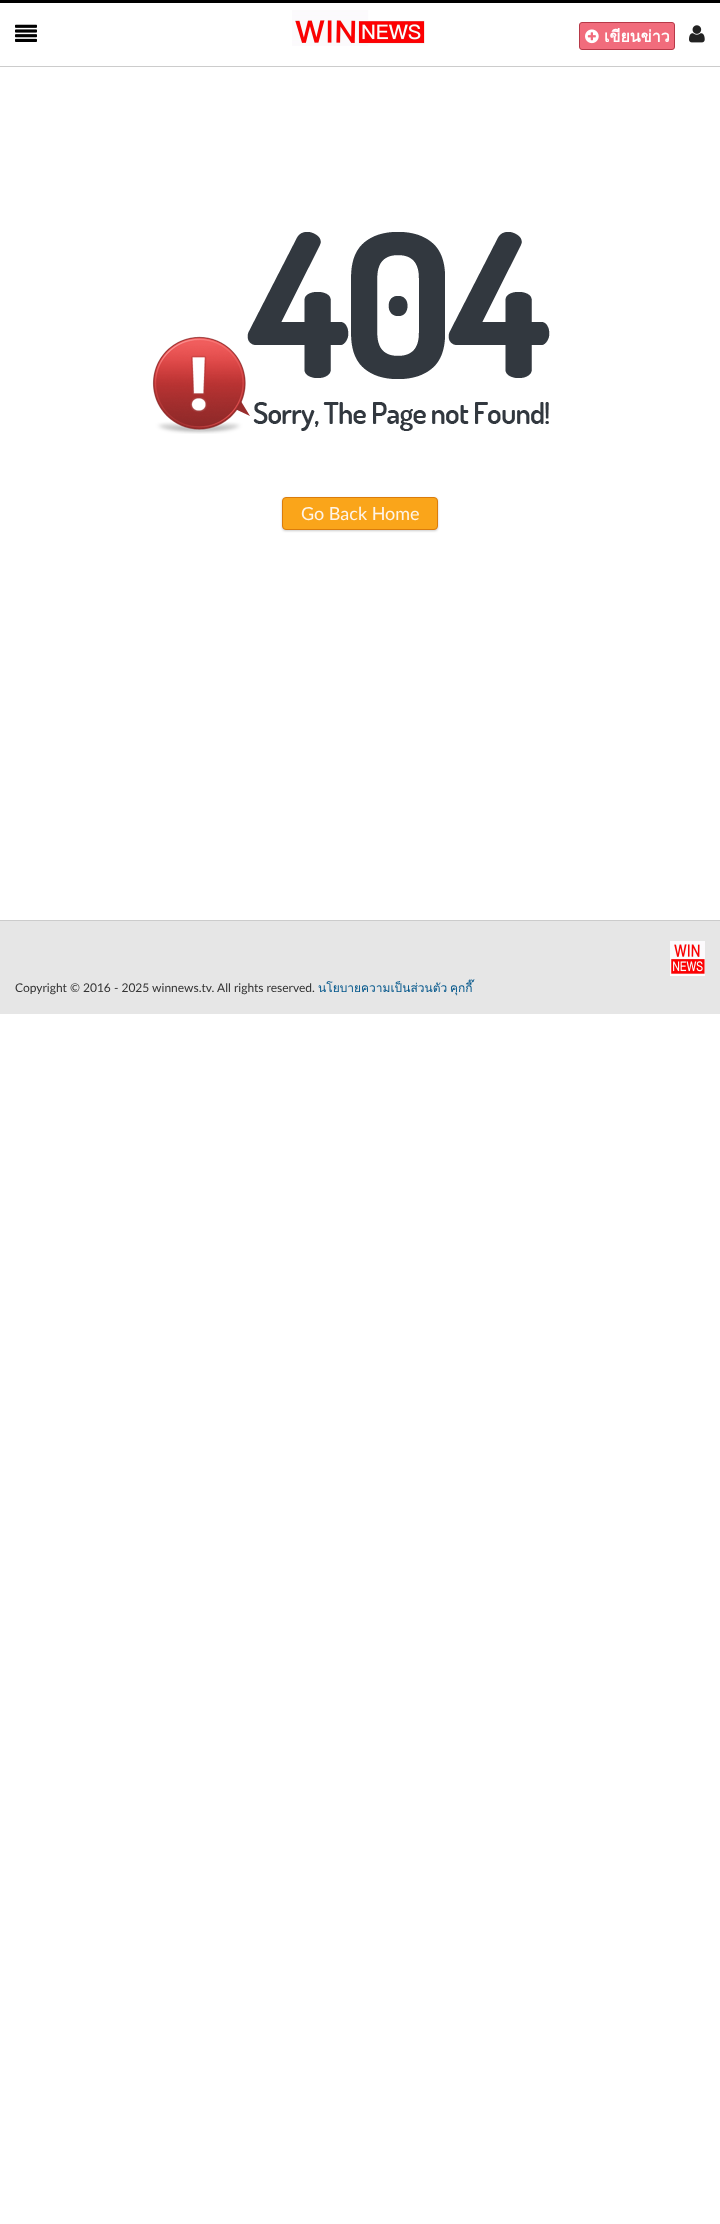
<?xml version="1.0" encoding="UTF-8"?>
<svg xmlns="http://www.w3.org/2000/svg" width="720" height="2224">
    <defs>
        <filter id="blur1" x="-50%" y="-200%" width="200%" height="500%"><feGaussianBlur stdDeviation="1"/></filter>
    </defs>
    <rect width="100%" height="100%" fill="#FFFFFF"/>
    <rect x="0" y="0" width="720" height="3" fill="#000000"/>
    <rect x="0" y="66" width="720" height="1" fill="#CCCCCC"/>
    <image x="15" y="24" width="22" height="18" href="img_01.png"/>
    <image x="292" y="10" width="133" height="36" href="img_02.png"/>
    <rect x="579.5" y="22.5" width="95" height="27" rx="2.5" fill="#F16C7C" stroke="#B73948"/>
    <image x="585" y="29" width="14" height="15" href="img_03.png"/>
    <text x="604" y="42" font-family="Loma" font-size="16" font-weight="700" fill="#FFFFFF">เขียนข่าว</text>
    <image x="689" y="25" width="16" height="18" href="img_04.png"/>
    <image x="152" y="232" width="398" height="202" href="img_05.png"/>
    <rect x="282" y="498" width="156" height="33" rx="4" fill="#000000" fill-opacity="0.2" filter="url(#blur1)"/>
    <rect x="282.5" y="497.5" width="155" height="32" rx="3.5" fill="#FAA51A" stroke="#DA7C0C"/>
    <text x="301" y="520" font-family="Lato" font-size="18" fill="#FEF4E9">Go Back Home</text>
    <rect x="0" y="921" width="720" height="93" fill="#E6E6E6"/>
    <rect x="0" y="920" width="720" height="1" fill="#CCCCCC"/>
    <image x="670" y="941" width="35" height="35" href="img_06.png"/>
    <text x="15" y="992" font-family="Lato" font-size="12" fill="#333333">Copyright © 2016 - 2025 winnews.tv. All rights reserved.</text>
    <text x="318" y="992" font-family="Loma" font-size="12" fill="#00558A">นโยบายความเป็นส่วนตัว</text>
    <text x="450" y="992" font-family="Loma" font-size="12" fill="#00558A">คุกกี๊</text>
</svg>
